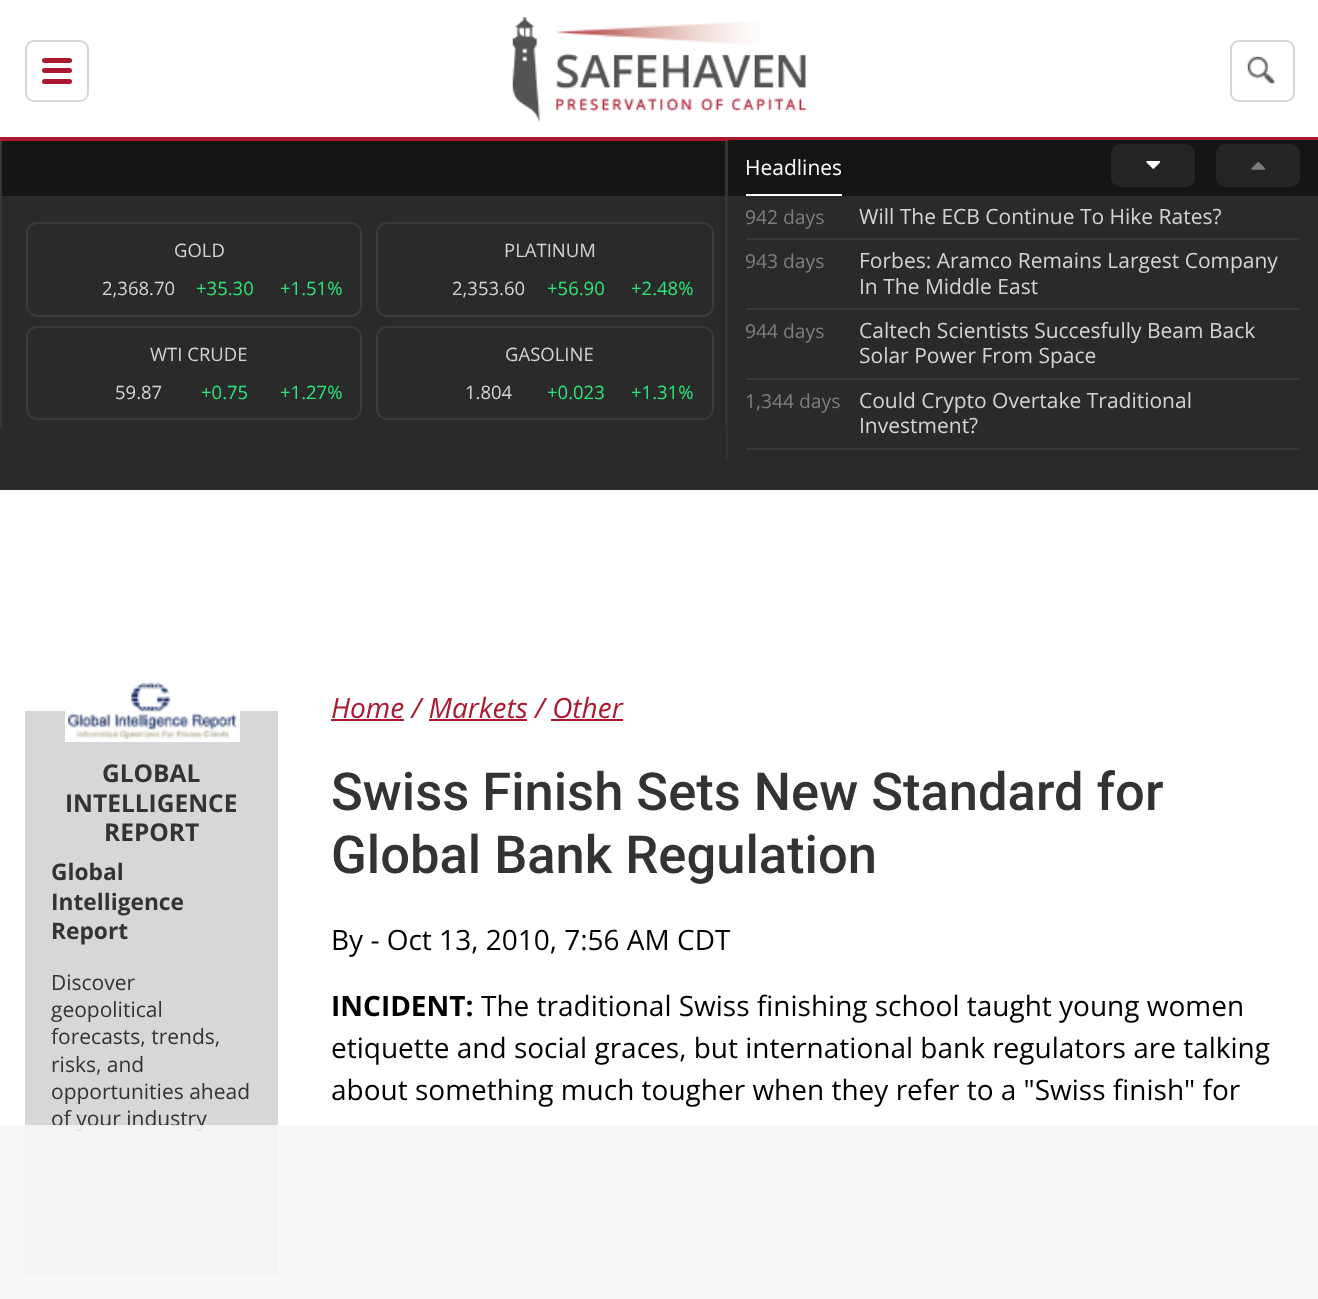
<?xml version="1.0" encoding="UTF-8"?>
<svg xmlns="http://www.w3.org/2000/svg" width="1318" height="1299">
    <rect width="100%" height="100%" fill="#FFFFFF"/>
    <rect x="26" y="41" width="62" height="60" rx="8" fill="none" stroke="#D6D6D6" stroke-width="2"/>
    <rect x="42" y="58" width="30" height="5" rx="2.5" fill="#AB182F"/>
    <rect x="42" y="68" width="30" height="5" rx="2.5" fill="#AB182F"/>
    <rect x="42" y="79" width="30" height="5" rx="2.5" fill="#AB182F"/>
    <image x="512" y="17" width="295" height="106" href="img_01.png"/>
    <image x="556" y="21" width="204" height="24" href="img_02.png"/>
    <rect x="1231" y="41" width="63" height="60" rx="8" fill="none" stroke="#D6D6D6" stroke-width="2"/>
    <image x="1247" y="56" width="28" height="28" href="img_03.png"/>
    <rect x="0" y="196" width="1318" height="294" fill="#2A2A2A"/>
    <rect x="725" y="140" width="1" height="289" fill="#373737"/>
    <rect x="0" y="140" width="2" height="289" fill="#373737"/>
    <rect x="726" y="140" width="2" height="319" fill="#333333"/>
    <rect x="0" y="137" width="1318" height="4" fill="#AB182F"/>
    <rect x="2" y="141" width="723" height="55" fill="#151515"/>
    <rect x="27" y="223" width="334" height="93" rx="10" fill="none" stroke="#3B3B3B" stroke-width="2"/>
    <text x="174" y="257" font-family="Open Sans" font-size="18.5" fill="#D4D4D4">GOLD</text>
    <text x="102" y="295" font-family="Open Sans" font-size="18.5" fill="#D4D4D4">2,368.70</text>
    <text x="196" y="295" font-family="Open Sans" font-size="18.5" fill="#2BE77A">+35.30</text>
    <text x="280" y="295" font-family="Open Sans" font-size="18.5" fill="#2BE77A">+1.51%</text>
    <rect x="377" y="223" width="336" height="93" rx="10" fill="none" stroke="#3B3B3B" stroke-width="2"/>
    <text x="504" y="257" font-family="Open Sans" font-size="18.5" fill="#D4D4D4">PLATINUM</text>
    <text x="452" y="295" font-family="Open Sans" font-size="18.5" fill="#D4D4D4">2,353.60</text>
    <text x="547" y="295" font-family="Open Sans" font-size="18.5" fill="#2BE77A">+56.90</text>
    <text x="631" y="295" font-family="Open Sans" font-size="18.5" fill="#2BE77A">+2.48%</text>
    <rect x="27" y="327" width="334" height="92" rx="10" fill="none" stroke="#3B3B3B" stroke-width="2"/>
    <text x="150" y="361" font-family="Open Sans" font-size="18.5" fill="#D4D4D4">WTI CRUDE</text>
    <text x="115" y="399" font-family="Open Sans" font-size="18.5" fill="#D4D4D4">59.87</text>
    <text x="201" y="399" font-family="Open Sans" font-size="18.5" fill="#2BE77A">+0.75</text>
    <text x="280" y="399" font-family="Open Sans" font-size="18.5" fill="#2BE77A">+1.27%</text>
    <rect x="377" y="327" width="336" height="92" rx="10" fill="none" stroke="#3B3B3B" stroke-width="2"/>
    <text x="505" y="361" font-family="Open Sans" font-size="18.5" fill="#D4D4D4">GASOLINE</text>
    <text x="465" y="399" font-family="Open Sans" font-size="18.5" fill="#D4D4D4">1.804</text>
    <text x="547" y="399" font-family="Open Sans" font-size="18.5" fill="#2BE77A">+0.023</text>
    <text x="631" y="399" font-family="Open Sans" font-size="18.5" fill="#2BE77A">+1.31%</text>
    <rect x="728" y="140" width="590" height="56" fill="#151515"/>
    <text x="745" y="175" font-family="Open Sans" font-size="21" fill="#FFFFFF">Headlines</text>
    <rect x="746" y="194" width="96" height="2" fill="#FFFFFF"/>
    <rect x="1111" y="144" width="84" height="43" rx="9" fill="#252525"/>
    <image x="1146" y="161" width="15" height="8" href="img_04.png"/>
    <rect x="1216" y="144" width="84" height="43" rx="9" fill="#252525"/>
    <image x="1251" y="162" width="15" height="8" href="img_05.png"/>
    <rect x="746" y="238" width="554" height="2" fill="#393939"/>
    <text x="745" y="224" font-family="Open Sans" font-size="19.25" fill="#7F7F7F">942 days</text>
    <text x="859" y="224" font-family="Open Sans" font-size="21" fill="#D4D4D4">Will The ECB Continue To Hike Rates?</text>
    <rect x="746" y="308" width="554" height="2" fill="#393939"/>
    <text x="745" y="268" font-family="Open Sans" font-size="19.25" fill="#7F7F7F">943 days</text>
    <text font-family="Open Sans" font-size="21" fill="#D4D4D4">
        <tspan x="859" y="268">Forbes: Aramco Remains Largest Company</tspan>
        <tspan x="859" y="294">In The Middle East</tspan>
    </text>
    <rect x="746" y="378" width="554" height="2" fill="#393939"/>
    <text x="745" y="338" font-family="Open Sans" font-size="19.25" fill="#7F7F7F">944 days</text>
    <text font-family="Open Sans" font-size="21" fill="#D4D4D4">
        <tspan x="859" y="338">Caltech Scientists Succesfully Beam Back</tspan>
        <tspan x="859" y="363">Solar Power From Space</tspan>
    </text>
    <rect x="746" y="448" width="554" height="2" fill="#393939"/>
    <text x="745" y="408" font-family="Open Sans" font-size="19.25" fill="#7F7F7F">1,344 days</text>
    <text font-family="Open Sans" font-size="21" fill="#D4D4D4">
        <tspan x="859" y="408">Could Crypto Overtake Traditional</tspan>
        <tspan x="859" y="433">Investment?</tspan>
    </text>
    <rect x="25" y="711" width="253" height="565" fill="#D7D7D7"/>
    <rect x="65" y="711" width="175" height="31" fill="#FFFFFF"/>
    <image x="68" y="682" width="169" height="57" href="img_06.png"/>
    <text x="102" y="782" font-family="Open Sans" font-size="24.5" font-weight="700" fill="#333333">GLOBAL</text>
    <text x="65" y="812" font-family="Open Sans" font-size="24.5" font-weight="700" fill="#333333">INTELLIGENCE</text>
    <text x="104" y="841" font-family="Open Sans" font-size="24.5" font-weight="700" fill="#333333">REPORT</text>
    <text font-family="Open Sans" font-size="22.75" font-weight="700" fill="#333333">
        <tspan x="51" y="880">Global</tspan>
        <tspan x="51" y="910">Intelligence</tspan>
        <tspan x="51" y="939">Report</tspan>
    </text>
    <text font-family="Open Sans" font-size="21" fill="#333333">
        <tspan x="51" y="990">Discover</tspan>
        <tspan x="51" y="1017">geopolitical</tspan>
        <tspan x="51" y="1044">forecasts, trends,</tspan>
        <tspan x="51" y="1072">risks, and</tspan>
        <tspan x="51" y="1099">opportunities ahead</tspan>
        <tspan x="51" y="1126">of your industry</tspan>
    </text>
    <text x="331" y="718" font-family="Open Sans" font-size="28" font-style="italic" fill="#AB182F">Home / Markets / Other</text>
    <rect x="331" y="719" width="73" height="2" fill="#AB182F"/>
    <rect x="429" y="719" width="98" height="2" fill="#AB182F"/>
    <rect x="551" y="719" width="72" height="2" fill="#AB182F"/>
    <text font-family="Roboto" font-size="52.5" font-weight="500" fill="#333333">
        <tspan x="331" y="810">Swiss Finish Sets New Standard for</tspan>
        <tspan x="331" y="873">Global Bank Regulation</tspan>
    </text>
    <text x="331" y="950" font-family="Open Sans" font-size="28" fill="#000000">By - Oct 13, 2010, 7:56 AM CDT</text>
    <text x="331" y="1016" font-family="Open Sans" font-size="28" font-weight="700" fill="#000000">INCIDENT:</text>
    <text x="481" y="1016" font-family="Open Sans" font-size="28" fill="#000000">The traditional Swiss finishing school taught young women</text>
    <text font-family="Open Sans" font-size="28" fill="#000000">
        <tspan x="331" y="1058">etiquette and social graces, but international bank regulators are talking</tspan>
        <tspan x="331" y="1100">about something much tougher when they refer to a "Swiss finish" for</tspan>
    </text>
    <rect x="0" y="1125" width="1318" height="174" fill="#F7F7F7" fill-opacity="0.9"/>
</svg>
